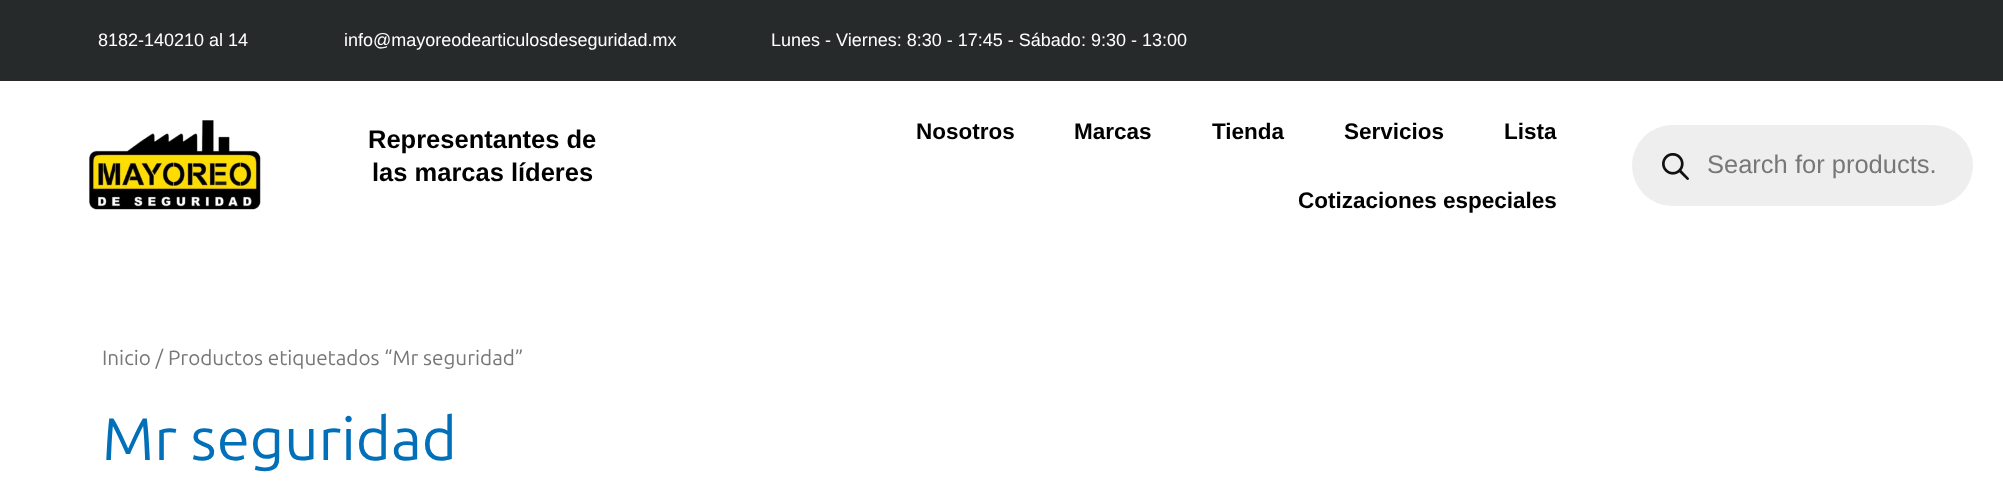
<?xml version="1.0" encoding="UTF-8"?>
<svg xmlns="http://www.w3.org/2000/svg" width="2003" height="482">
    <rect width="100%" height="100%" fill="#FFFFFF"/>
    <rect x="0" y="0" width="2003" height="81" fill="#262A2B"/>
    <text x="98" y="46" font-family="Liberation Sans" font-size="18" fill="#FFFFFF">8182-140210 al 14</text>
    <text x="344" y="46" font-family="Liberation Sans" font-size="18" fill="#FFFFFF">info@mayoreodearticulosdeseguridad.mx</text>
    <text x="771" y="46" font-family="Liberation Sans" font-size="18" fill="#FFFFFF">Lunes - Viernes: 8:30 - 17:45 - Sábado: 9:30 - 13:00</text>
    <image x="89" y="120" width="172" height="90" href="img_01.png"/>
    <text x="368" y="148" font-family="Liberation Sans" font-size="25.5" font-weight="700" fill="#000000">Representantes de</text>
    <text x="372" y="181" font-family="Liberation Sans" font-size="25.5" font-weight="700" fill="#000000">las marcas líderes</text>
    <text x="916" y="139" font-family="Liberation Sans" font-size="22.5" font-weight="700" fill="#000000">Nosotros</text>
    <text x="1074" y="139" font-family="Liberation Sans" font-size="22.5" font-weight="700" fill="#000000">Marcas</text>
    <text x="1212" y="139" font-family="Liberation Sans" font-size="22.5" font-weight="700" fill="#000000">Tienda</text>
    <text x="1344" y="139" font-family="Liberation Sans" font-size="22.5" font-weight="700" fill="#000000">Servicios</text>
    <text x="1504" y="139" font-family="Liberation Sans" font-size="22.5" font-weight="700" fill="#000000">Lista</text>
    <text x="1298" y="208" font-family="Liberation Sans" font-size="22.5" font-weight="700" fill="#000000">Cotizaciones especiales</text>
    <rect x="1632" y="125" width="341" height="81" rx="40.5" fill="#EEEEEE"/>
    <image x="1662" y="153" width="27" height="27" href="img_02.png"/>
    <text x="1707" y="173" font-family="Liberation Sans" font-size="25.5" fill="#777777">Search for products.</text>
    <text x="102" y="365" font-family="Ubuntu" font-size="20.7" fill="#777777">Inicio / Productos etiquetados “Mr seguridad”</text>
    <text x="102" y="460" font-family="Ubuntu" font-size="60" fill="#0170B9">Mr seguridad</text>
</svg>
